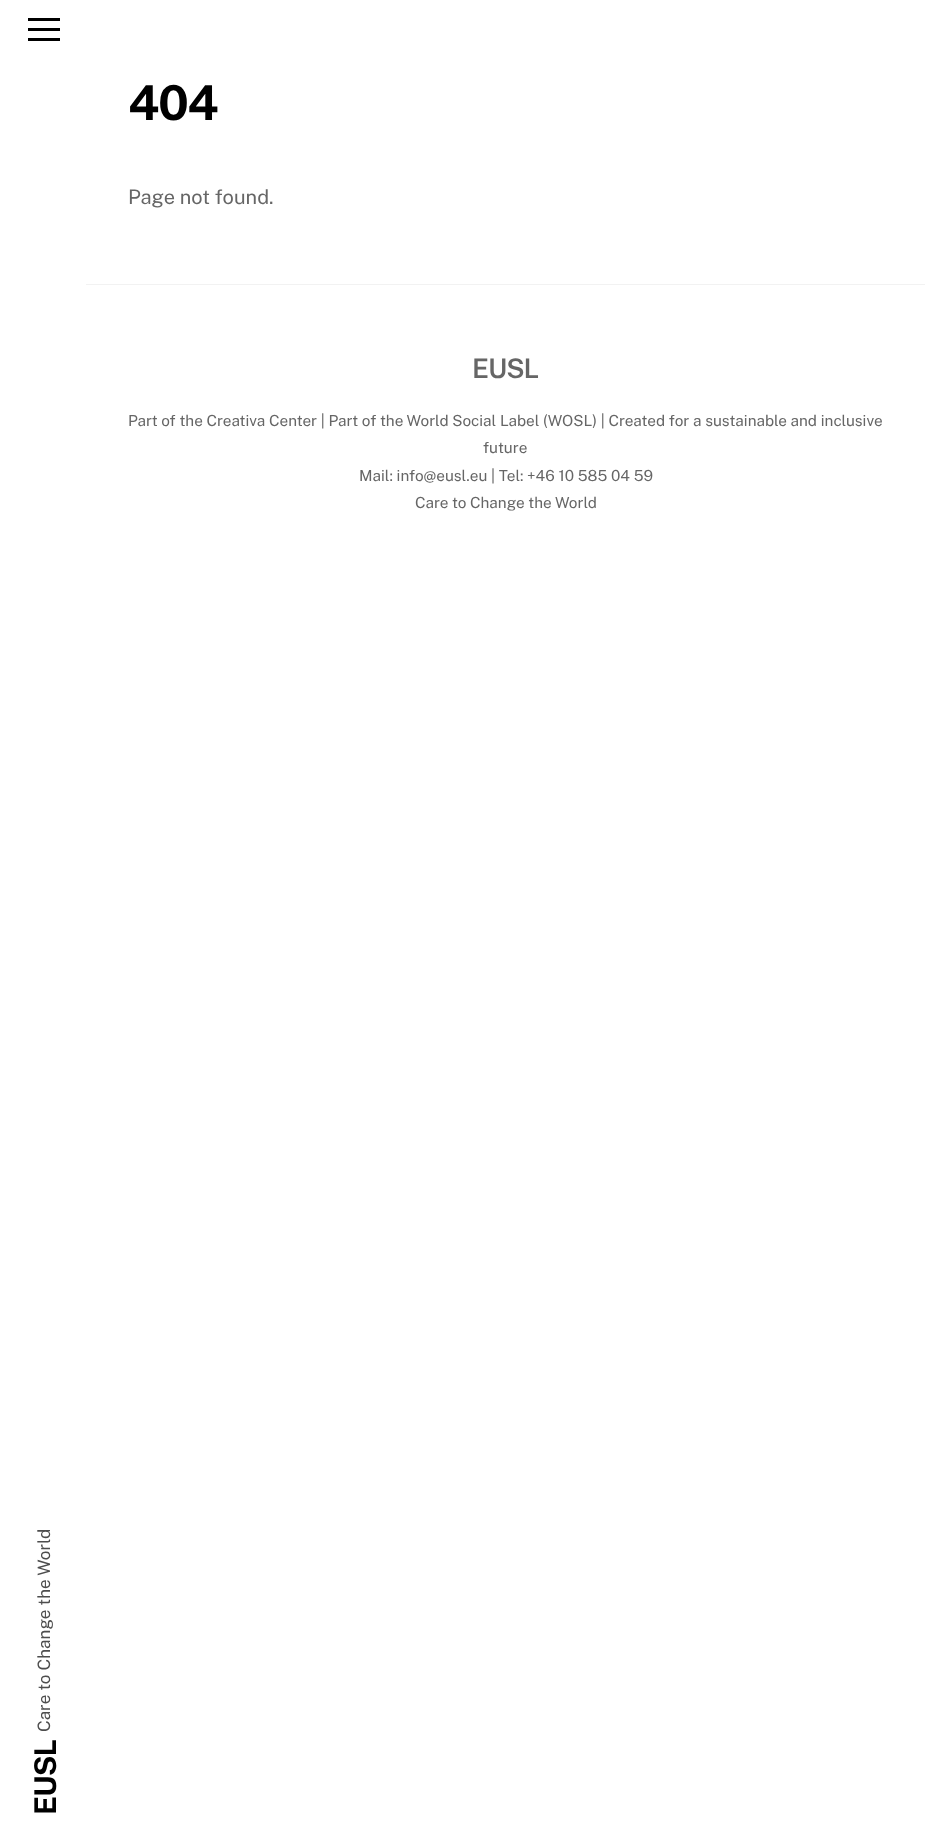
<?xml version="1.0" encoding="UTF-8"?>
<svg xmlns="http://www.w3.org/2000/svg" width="925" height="1844">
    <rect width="100%" height="100%" fill="#FFFFFF"/>
    <text x="128" y="120" font-family="Public Sans" font-size="48" font-weight="700" letter-spacing="-1.5" fill="#000000">404</text>
    <text x="128" y="204" font-family="Public Sans" font-size="20" fill="#666666">Page not found.</text>
    <rect x="86" y="284" width="839" height="1" fill="#F2F2F2"/>
    <text x="472" y="378" font-family="Public Sans" font-size="27" font-weight="600" letter-spacing="-1" fill="#666666">EUSL</text>
    <text x="128" y="426" font-family="Public Sans" font-size="15.3" fill="#666666">Part of the Creativa Center | Part of the World Social Label (WOSL) | Created for a sustainable and inclusive</text>
    <text x="483" y="453" font-family="Public Sans" font-size="15.3" fill="#666666">future</text>
    <text x="359" y="481" font-family="Public Sans" font-size="15.3" fill="#666666">Mail: info@eusl.eu | Tel: +46 10 585 04 59</text>
    <text x="415" y="508" font-family="Public Sans" font-size="15.3" fill="#666666">Care to Change the World</text>
    <rect x="28" y="38" width="32" height="3" fill="#000000"/>
    <rect x="28" y="18" width="32" height="3" fill="#000000"/>
    <rect x="28" y="28" width="32" height="3" fill="#000000"/>
    <text x="50" y="1732" transform="rotate(-90 50 1732)" font-family="Public Sans" font-size="17.1" fill="#4D4D4D">Care to Change the World</text>
    <text x="56" y="1815" transform="rotate(-90 56 1815)" font-family="Public Sans" font-size="30" font-weight="700" letter-spacing="-1" fill="#000000">EUSL</text>
</svg>
